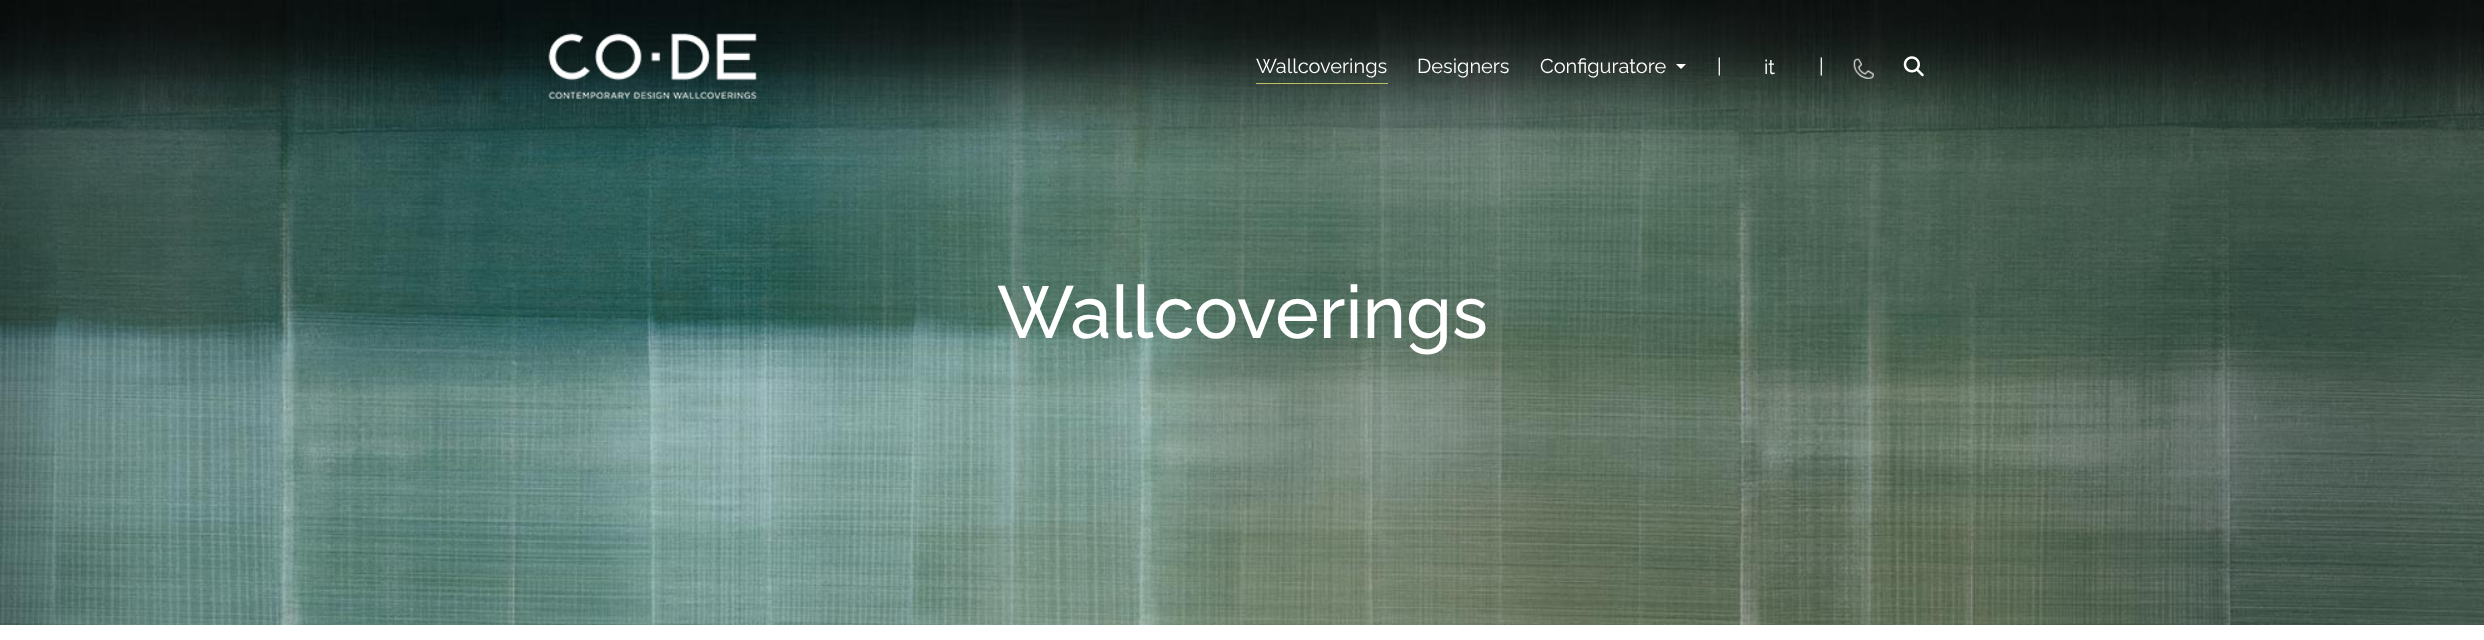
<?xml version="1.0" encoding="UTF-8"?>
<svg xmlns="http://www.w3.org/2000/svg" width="2484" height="640">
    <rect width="100%" height="100%" fill="#FFFFFF"/>
    <image x="0" y="0" width="2484" height="625" href="img_01.png"/>
    <image x="548" y="33" width="209" height="66" href="img_02.png"/>
    <text x="1256" y="73" font-family="Raleway" font-size="20" fill="#FFFFFF">Wallcoverings</text>
    <rect x="1256" y="83" width="132" height="1" fill="#BBBE64"/>
    <text x="1417" y="73" font-family="Raleway" font-size="20" fill="#FFFFFF">Designers</text>
    <text x="1540" y="73" font-family="Raleway" font-size="20" fill="#FFFFFF">Configuratore</text>
    <path d="M 1676 64 H 1686 L 1681 69 Z" fill="#FFFFFF"/>
    <text x="1717" y="73" font-family="Raleway" font-size="20" fill="#FFFFFF">|</text>
    <text x="1764" y="74" font-family="Raleway" font-size="20" fill="#FFFFFF">it</text>
    <text x="1819" y="73" font-family="Raleway" font-size="20" fill="#FFFFFF">|</text>
    <image x="1853" y="58" width="21" height="21" href="img_03.png"/>
    <image x="1903" y="56" width="21" height="21" href="img_04.png"/>
    <text x="997" y="338" font-family="Raleway" font-size="73.75" font-weight="500" fill="#FFFFFF">Wallcoverings</text>
</svg>
